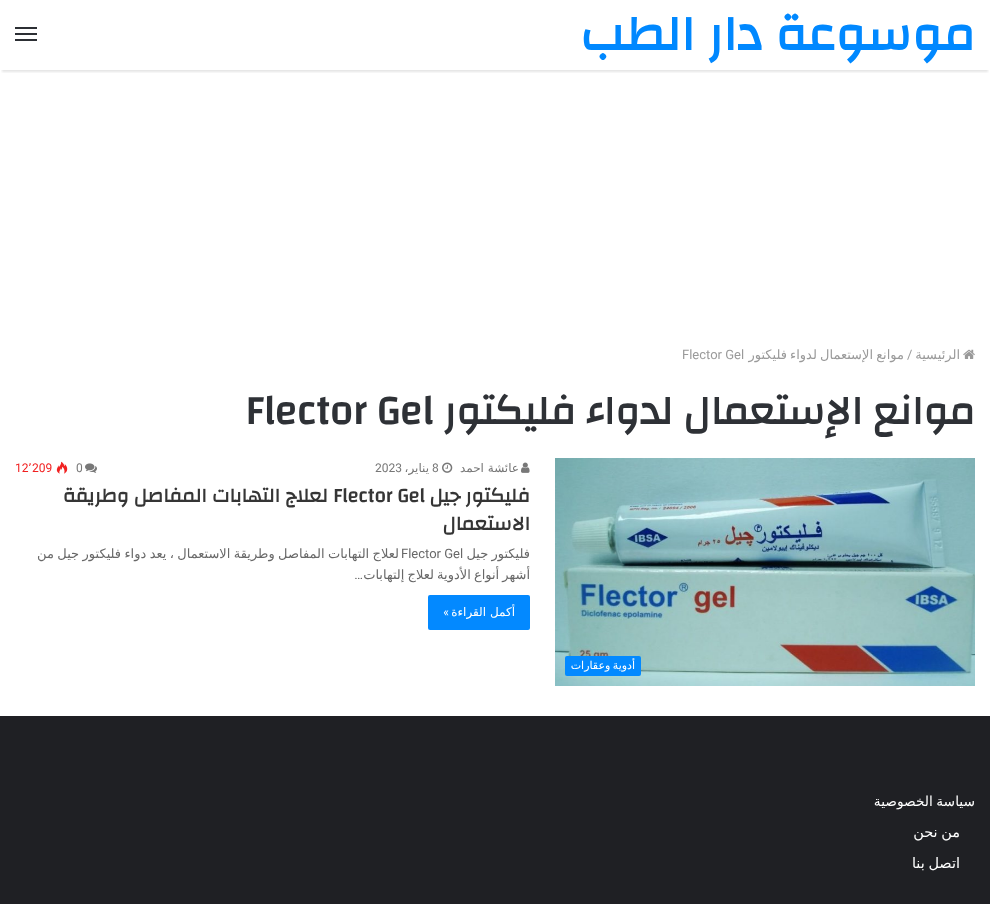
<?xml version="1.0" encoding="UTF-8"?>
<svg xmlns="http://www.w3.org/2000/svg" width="990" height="904">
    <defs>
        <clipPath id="clip1"><rect x="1" y="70" width="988" height="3"/></clipPath>
        <filter id="blur1" x="-50%" y="-200%" width="200%" height="500%"><feGaussianBlur stdDeviation="1"/></filter>
    </defs>
    <rect width="100%" height="100%" fill="#FFFFFF"/>
    <g clip-path="url(#clip1)">
        <rect x="2" y="6" width="986" height="66" fill="#000000" fill-opacity="0.1" filter="url(#blur1)"/>
    </g>
    <text x="975" y="50" font-family="Changa" font-size="50" font-weight="700" direction="rtl" fill="#0088FF">موسوعة دار الطب</text>
    <rect x="15" y="33" width="22" height="2" fill="#2C2F34"/>
    <rect x="15" y="27" width="22" height="2" fill="#2C2F34"/>
    <rect x="15" y="39" width="22" height="2" fill="#2C2F34"/>
    <image x="963" y="349" width="12" height="10" href="img_01.png"/>
    <text x="960" y="359" font-family="DejaVu Sans" font-size="13" direction="rtl" fill="#9A9A9A">الرئيسية</text>
    <text x="907" y="359" font-family="Roboto" font-size="13" fill="#9A9A9A">/</text>
    <text x="904" y="359" word-spacing="-1" font-family="DejaVu Sans" font-size="13" direction="rtl" fill="#9A9A9A">موانع الإستعمال لدواء فليكتور</text>
    <text x="682" y="359" font-family="Roboto" font-size="13" fill="#9A9A9A">Flector Gel</text>
    <text x="975" y="424" font-family="Changa" font-size="41" font-weight="700" direction="rtl" fill="#2E3136">موانع الإستعمال لدواء فليكتور</text>
    <text x="245" y="424" font-family="Changa" font-size="41" font-weight="700" fill="#2E3136">Flector Gel</text>
    <image x="521" y="462" width="9" height="11" href="img_02.png"/>
    <text x="519" y="472" font-family="DejaVu Sans" font-size="12" direction="rtl" fill="#777777">عائشة احمد</text>
    <image x="442" y="462" width="11" height="11" href="img_03.png"/>
    <text x="432" y="472" font-family="Roboto" font-size="12" fill="#777777">8</text>
    <text x="429" y="472" font-family="DejaVu Sans" font-size="12" direction="rtl" fill="#777777">يناير،</text>
    <text x="375" y="472" font-family="Roboto" font-size="12" fill="#777777">2023</text>
    <image x="85" y="463" width="12" height="10" href="img_04.png"/>
    <text x="76" y="472" font-family="Roboto" font-size="12" fill="#777777">0</text>
    <image x="56" y="461" width="12" height="13" href="img_05.png"/>
    <text x="32" y="472" font-family="Roboto" font-size="12" fill="#F12020">209</text>
    <text x="28" y="472" font-family="DejaVu Sans" font-size="12" fill="#F12020">٬</text>
    <text x="15" y="472" font-family="Roboto" font-size="12" fill="#F12020">12</text>
    <text x="530" y="502" font-family="Changa" font-size="20" font-weight="700" direction="rtl" fill="#353535">فليكتور جيل</text>
    <text x="333" y="502" font-family="Changa" font-size="20" font-weight="700" fill="#353535">Flector Gel</text>
    <text x="328" y="502" font-family="Changa" font-size="20" font-weight="700" direction="rtl" fill="#353535">لعلاج التهابات المفاصل وطريقة</text>
    <text x="530" y="530" font-family="Changa" font-size="20" font-weight="700" direction="rtl" fill="#353535">الاستعمال</text>
    <text x="530" y="558" word-spacing="-1" font-family="DejaVu Sans" font-size="13" direction="rtl" fill="#686868">فليكتور جيل</text>
    <text x="399" y="558" word-spacing="-0.75" font-family="DejaVu Sans" font-size="13" direction="rtl" fill="#686868">لعلاج التهابات المفاصل وطريقة الاستعمال ، يعد دواء فليكتور جيل من</text>
    <text x="401" y="558" font-family="Roboto" font-size="13" fill="#686868">Flector Gel</text>
    <text x="530" y="579" word-spacing="-1" font-family="DejaVu Sans" font-size="13" direction="rtl" fill="#686868">أشهر أنواع الأدوية لعلاج إلتهابات</text>
    <text x="363" y="579" font-family="Roboto" font-size="13" direction="rtl" fill="#686868">…</text>
    <rect x="428" y="595" width="102" height="35" rx="2" fill="#0389FF"/>
    <text x="515" y="616" font-family="DejaVu Sans" font-size="12" direction="rtl" fill="#FFFFFF">أكمل القراءة</text>
    <text x="449" y="616" font-family="Roboto" font-size="12" direction="rtl" fill="#FFFFFF">»</text>
    <image x="555" y="458" width="420" height="228" href="img_06.png"/>
    <rect x="565" y="656" width="76" height="20" rx="2" fill="#0389FF"/>
    <text x="635" y="669" word-spacing="-1" font-family="DejaVu Sans" font-size="11" direction="rtl" fill="#FFFFFF">أدوية وعقارات</text>
    <rect x="0" y="716" width="990" height="188" fill="#1F2024"/>
    <text x="975" y="806" word-spacing="-1" font-family="DejaVu Sans" font-size="13.75" direction="rtl" fill="#FFFFFF">سياسة الخصوصية</text>
    <text x="960" y="837" word-spacing="-1" font-family="DejaVu Sans" font-size="14.5" direction="rtl" fill="#FFFFFF">من نحن</text>
    <text x="960" y="868" word-spacing="-1" font-family="DejaVu Sans" font-size="14.5" direction="rtl" fill="#FFFFFF">اتصل بنا</text>
</svg>
